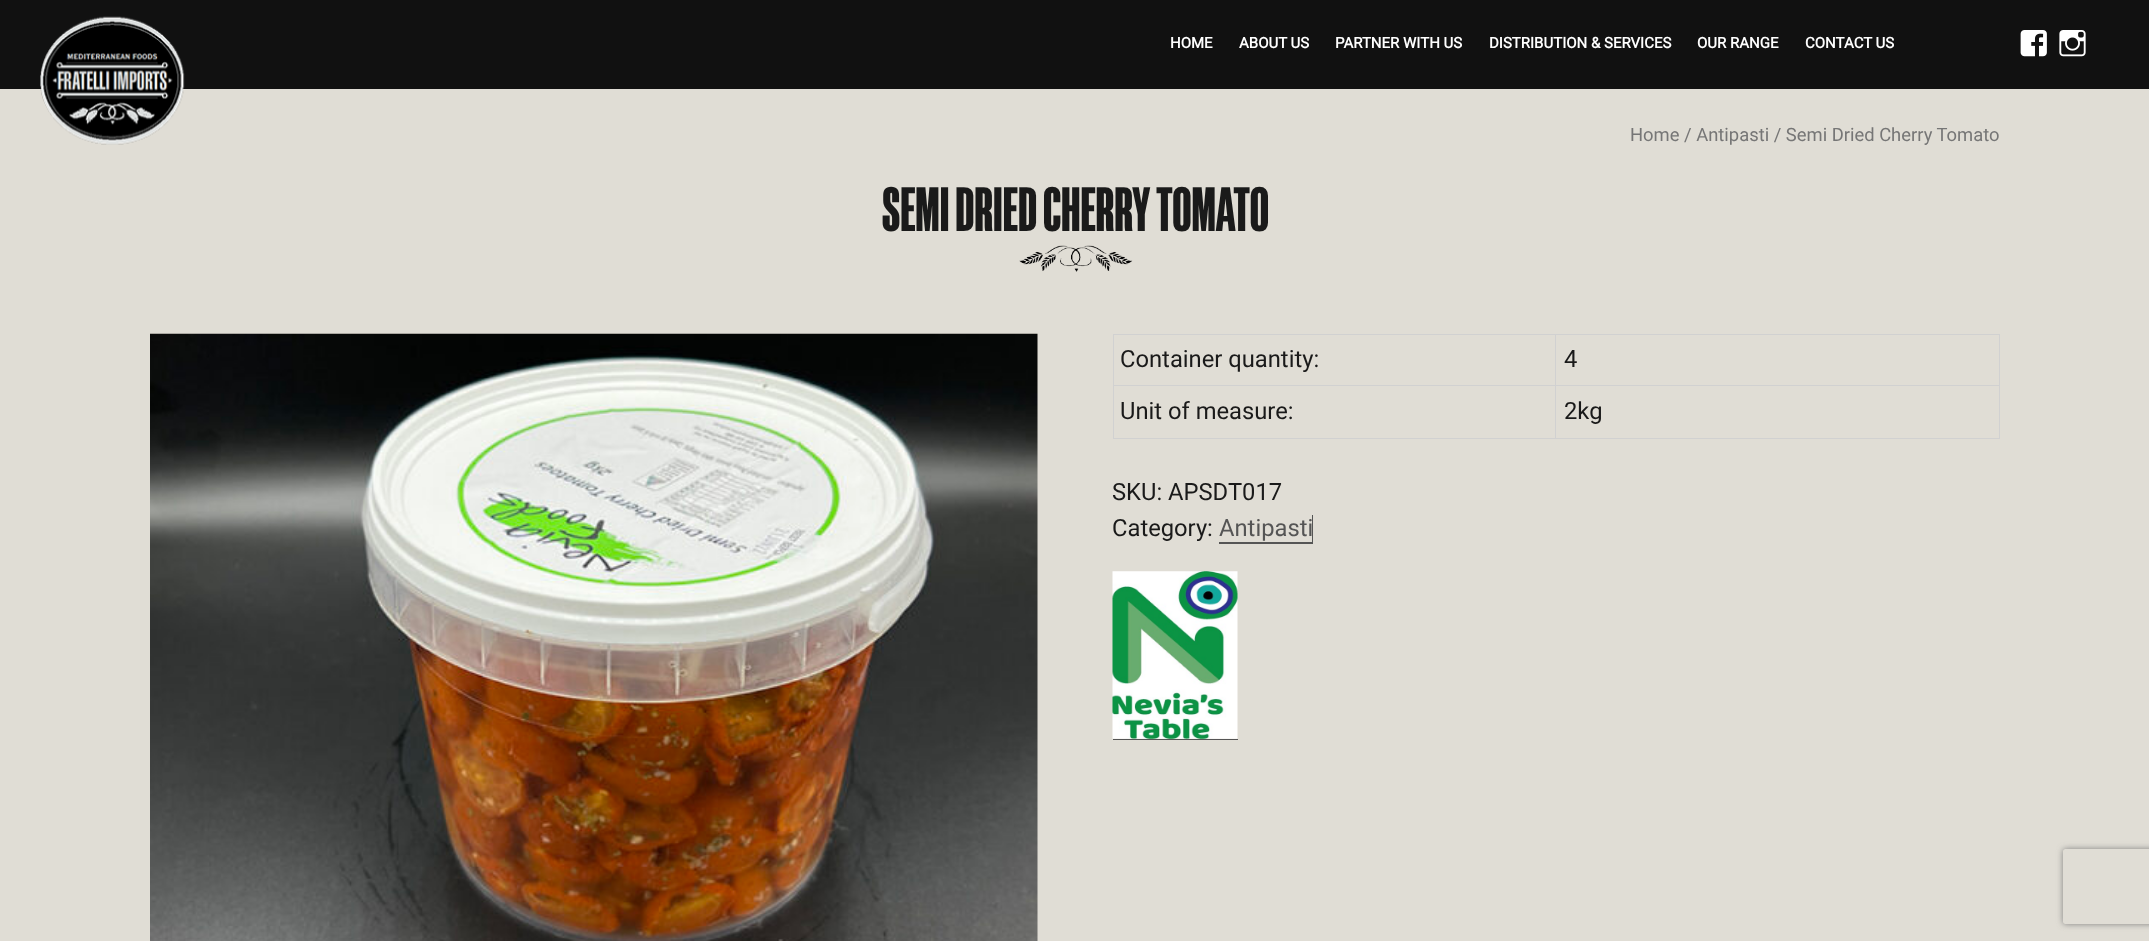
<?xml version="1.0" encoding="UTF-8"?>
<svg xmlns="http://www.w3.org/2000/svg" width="2149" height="941">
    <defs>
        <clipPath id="clip1"><path d="M 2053 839 H 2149 V 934 H 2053 Z M 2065.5 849 H 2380.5 C 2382 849 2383 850 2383 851.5 V 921.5 C 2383 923 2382 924 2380.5 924 H 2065.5 C 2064 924 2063 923 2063 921.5 V 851.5 C 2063 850 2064 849 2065.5 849 Z" clip-rule="evenodd"/></clipPath>
        <filter id="blur1" x="-50%" y="-200%" width="200%" height="500%"><feGaussianBlur stdDeviation="3"/></filter>
    </defs>
    <rect width="100%" height="100%" fill="#E0DDD5"/>
    <rect x="0" y="0" width="2149" height="89" fill="#111111"/>
    <image x="40" y="16" width="145" height="129" href="img_01.png"/>
    <text x="1170" y="48" font-family="Roboto" font-size="15" font-weight="700" fill="#FFFFFF">HOME</text>
    <text x="1239" y="48" font-family="Roboto" font-size="15" font-weight="700" fill="#FFFFFF">ABOUT US</text>
    <text x="1335" y="48" font-family="Roboto" font-size="15" font-weight="700" fill="#FFFFFF">PARTNER WITH US</text>
    <text x="1489" y="48" font-family="Roboto" font-size="15" font-weight="700" fill="#FFFFFF">DISTRIBUTION &amp; SERVICES</text>
    <text x="1697" y="48" font-family="Roboto" font-size="15" font-weight="700" fill="#FFFFFF">OUR RANGE</text>
    <text x="1805" y="48" font-family="Roboto" font-size="15" font-weight="700" fill="#FFFFFF">CONTACT US</text>
    <image x="2020" y="30" width="27" height="27" href="img_02.png"/>
    <image x="2059" y="30" width="27" height="27" href="img_03.png"/>
    <text x="1630" y="141" font-family="Roboto" font-size="18.4" fill="#767676">Home / Antipasti / Semi Dried Cherry Tomato</text>
    <text x="882" y="231" font-family="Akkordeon" font-size="62.5" font-weight="500" fill="#1A1A1A">SEMI DRIED CHERRY TOMATO</text>
    <image x="1019" y="245" width="114" height="27" href="img_04.png"/>
    <image x="150" y="333" width="888" height="608" href="img_05.png"/>
    <rect x="1113" y="334" width="887" height="1" fill="#D1D1D1"/>
    <rect x="1113" y="334" width="1" height="105" fill="#D1D1D1"/>
    <rect x="1555" y="335" width="1" height="104" fill="#D1D1D1"/>
    <rect x="1114" y="385" width="442" height="1" fill="#D1D1D1"/>
    <text x="1120" y="367" font-family="Roboto" font-size="23.75" fill="#1A1A1A">Container quantity:</text>
    <rect x="1999" y="335" width="1" height="104" fill="#D1D1D1"/>
    <rect x="1556" y="385" width="444" height="1" fill="#D1D1D1"/>
    <text x="1564" y="367" font-family="Roboto" font-size="23.75" fill="#1A1A1A">4</text>
    <rect x="1114" y="438" width="886" height="1" fill="#D1D1D1"/>
    <text x="1120" y="419" font-family="Roboto" font-size="23.75" fill="#1A1A1A">Unit of measure:</text>
    <text x="1564" y="419" font-family="Roboto" font-size="23.75" fill="#1A1A1A">2kg</text>
    <text font-family="Roboto" font-size="23.75" fill="#1A1A1A">
        <tspan x="1112" y="500">SKU: APSDT017</tspan>
        <tspan x="1112" y="536">Category:</tspan>
    </text>
    <path d="M 1219 542 V 544 H 1313 V 515 H 1312 V 542 Z" fill="#555555"/>
    <text x="1219" y="536" font-family="Roboto" font-size="23.75" fill="#555555">Antipasti</text>
    <path d="M 1113 739 V 740 H 1238 V 573 V 739 Z" fill="#555555"/>
    <image x="1112" y="571" width="126" height="168" href="img_06.png"/>
    <g clip-path="url(#clip1)">
        <rect x="2063" y="849" width="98" height="75" rx="2.5" fill="#808080" filter="url(#blur1)"/>
    </g>
</svg>
